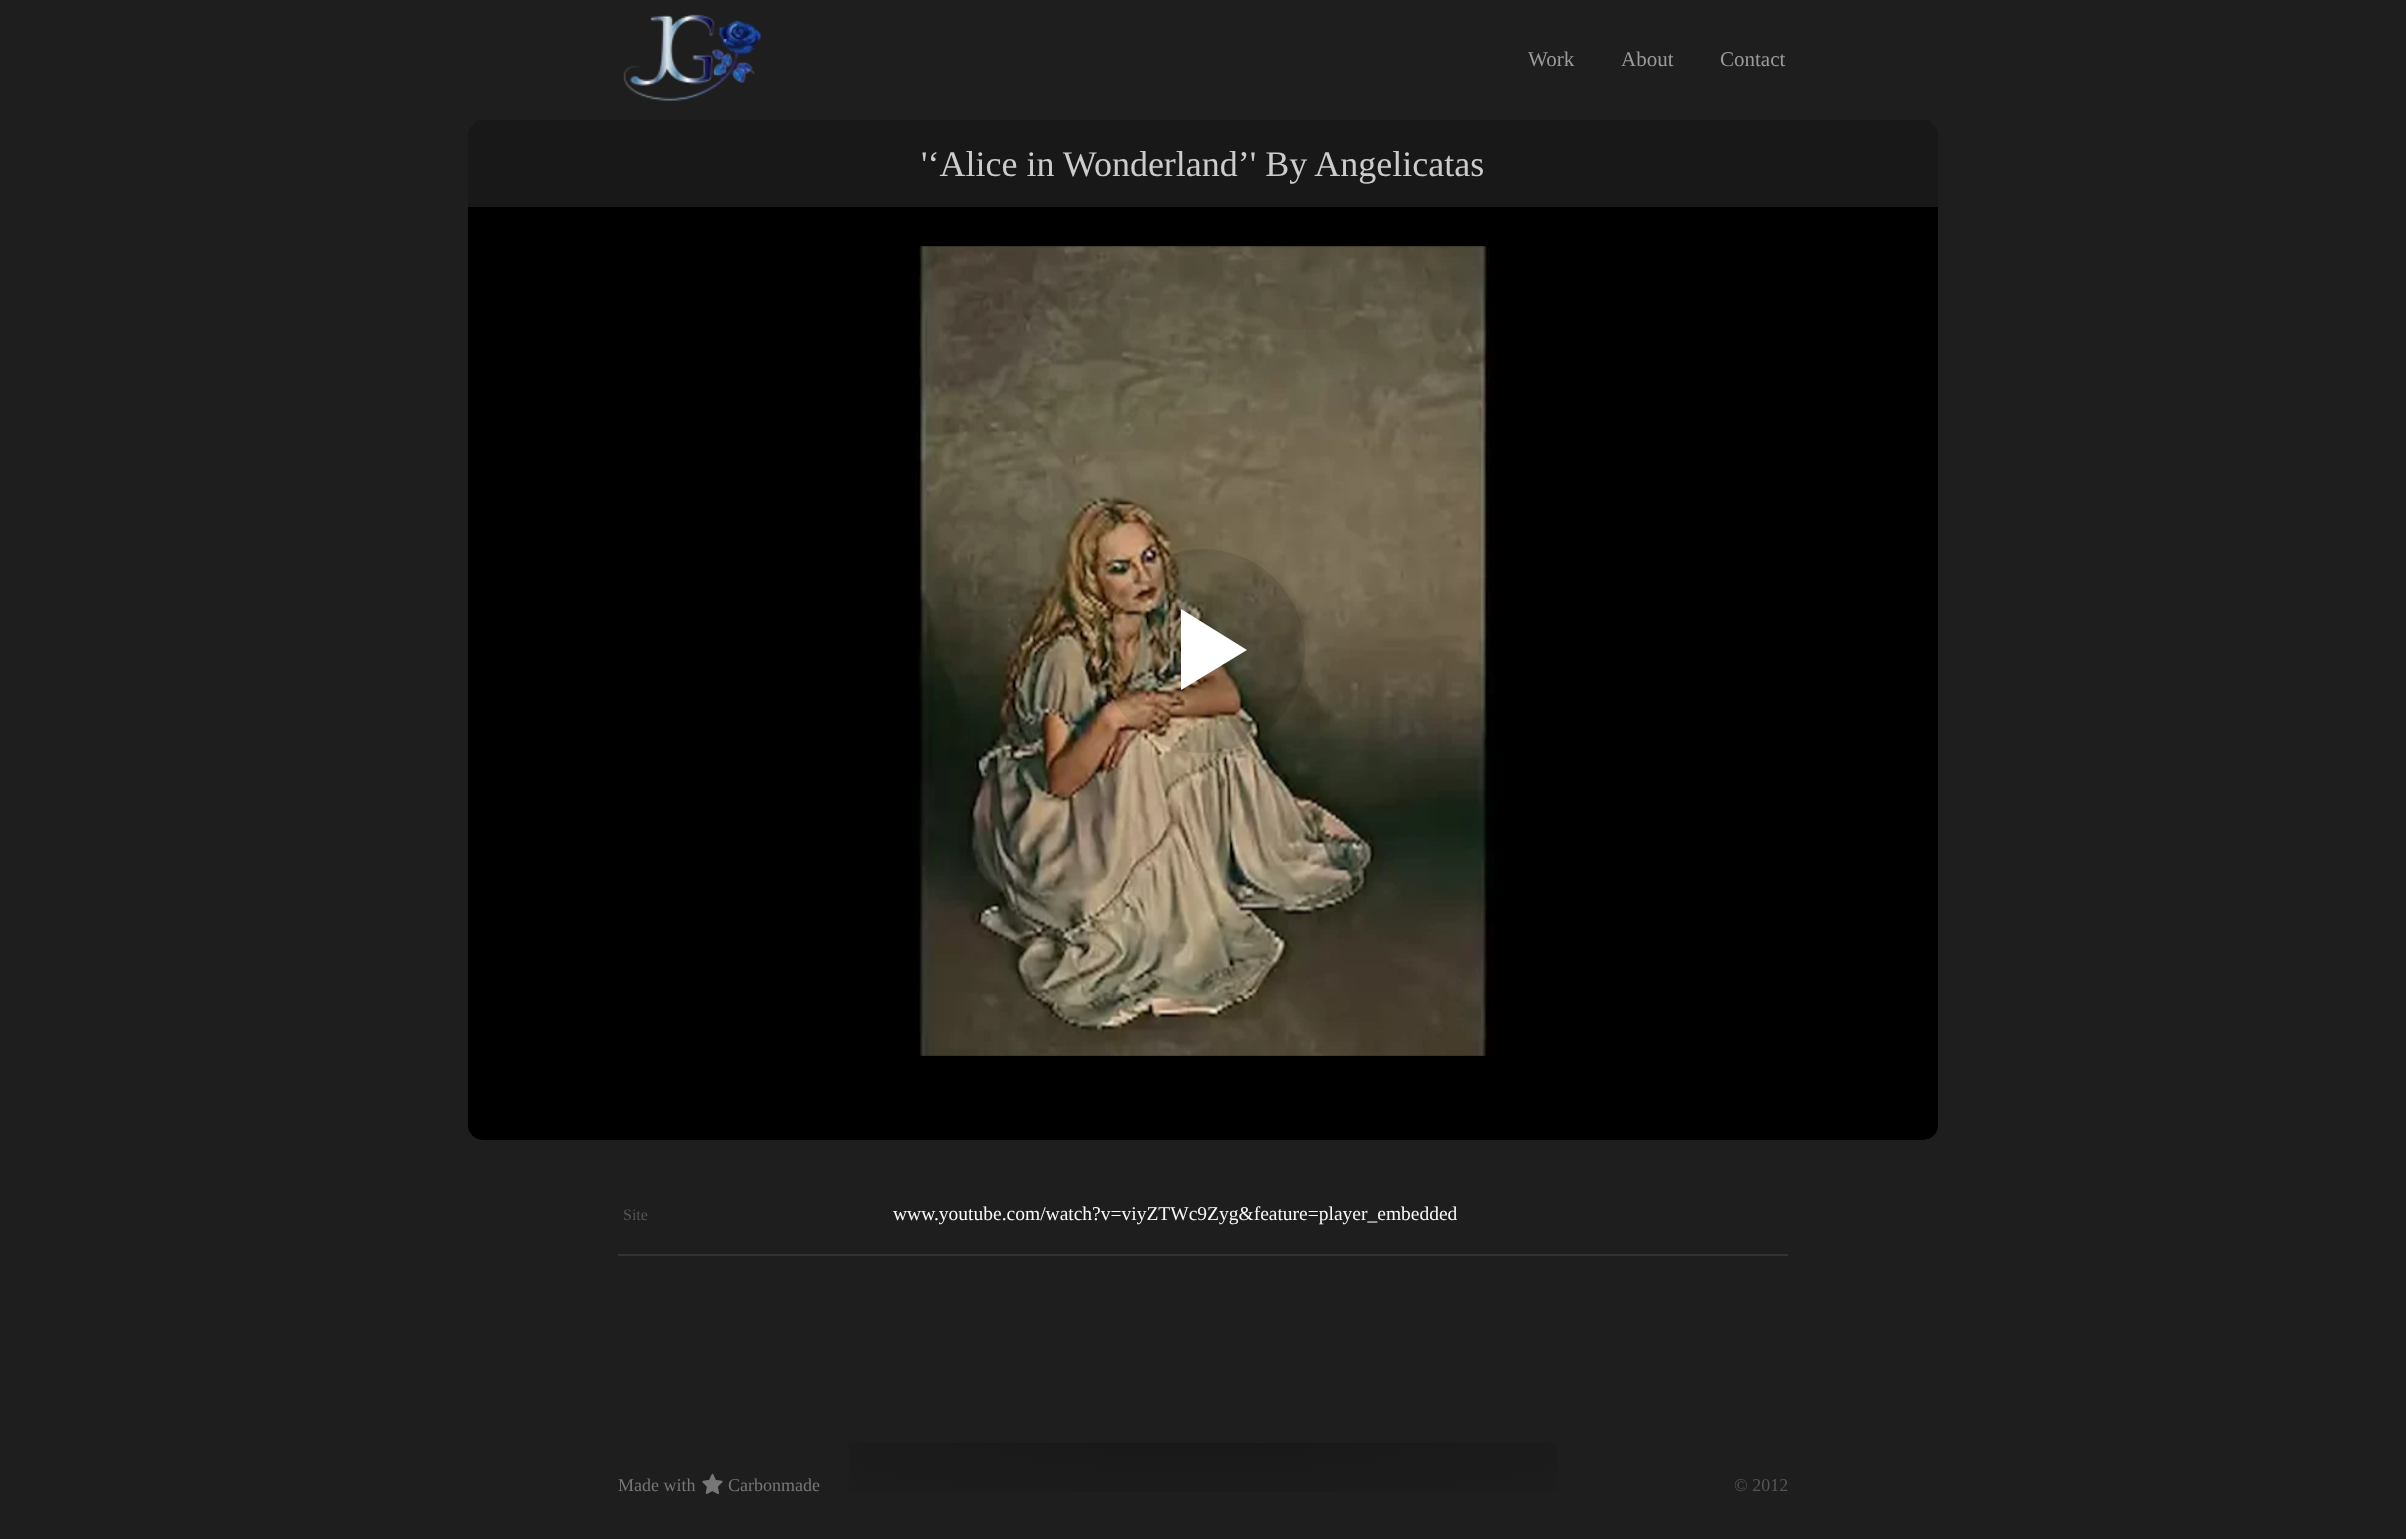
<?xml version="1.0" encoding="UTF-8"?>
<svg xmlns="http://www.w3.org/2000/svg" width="2406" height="1539">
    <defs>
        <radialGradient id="g1" gradientUnits="userSpaceOnUse" cx="0" cy="0" r="1" gradientTransform="matrix(609 0 0 84 1203 1443)"><stop offset="0" stop-color="#181818"/><stop offset="1" stop-color="#1E1E1E"/></radialGradient>
    </defs>
    <rect width="100%" height="100%" fill="#1E1E1E"/>
    <image x="623" y="14" width="139" height="87" href="img_01.png"/>
    <text x="1528" y="66" font-family="Liberation Serif" font-size="21" fill="#9B9B9B">Work</text>
    <text x="1621" y="66" font-family="Liberation Serif" font-size="21" fill="#9B9B9B">About</text>
    <text x="1720" y="66" font-family="Liberation Serif" font-size="21" fill="#9B9B9B">Contact</text>
    <rect x="468" y="120" width="1470" height="1020" rx="15" fill="#000000"/>
    <path d="M 483 120 H 1923 C 1931.5 120 1938 126.5 1938 135 V 207 H 468 V 135 C 468 126.5 474.5 120 483 120 Z" fill="#EFEFEF" fill-opacity="0.1"/>
    <text x="921" y="176" font-family="Liberation Serif" font-size="36" fill="#CCCCCC">'‘Alice in Wonderland’' By Angelicatas</text>
    <image x="915" y="246" width="580" height="810" href="img_02.png"/>
    <circle cx="1203" cy="651" r="102" fill="#000000" fill-opacity="0.1"/>
    <path d="M 1247 650 L 1181 690 V 609 Z" fill="#FFFFFF"/>
    <rect x="618" y="1254" width="1170" height="2" fill="#333333"/>
    <text x="623" y="1220" font-family="Liberation Serif" font-size="16" fill="#555555">Site</text>
    <text x="893" y="1220" font-family="Liberation Serif" font-size="19.5" fill="#FAFAFA">www.youtube.com/watch?v=viyZTWc9Zyg&amp;feature=player_embedded</text>
    <rect x="849" y="1443" width="708" height="49" fill="url(#g1)"/>
    <text x="618" y="1491" font-family="Liberation Serif" font-size="18" fill="#777777">Made with</text>
    <image x="702" y="1473" width="21" height="22" href="img_03.png"/>
    <text x="728" y="1491" font-family="Liberation Serif" font-size="18" fill="#777777">Carbonmade</text>
    <text x="1734" y="1491" font-family="Liberation Serif" font-size="18" fill="#555555">© 2012</text>
</svg>
